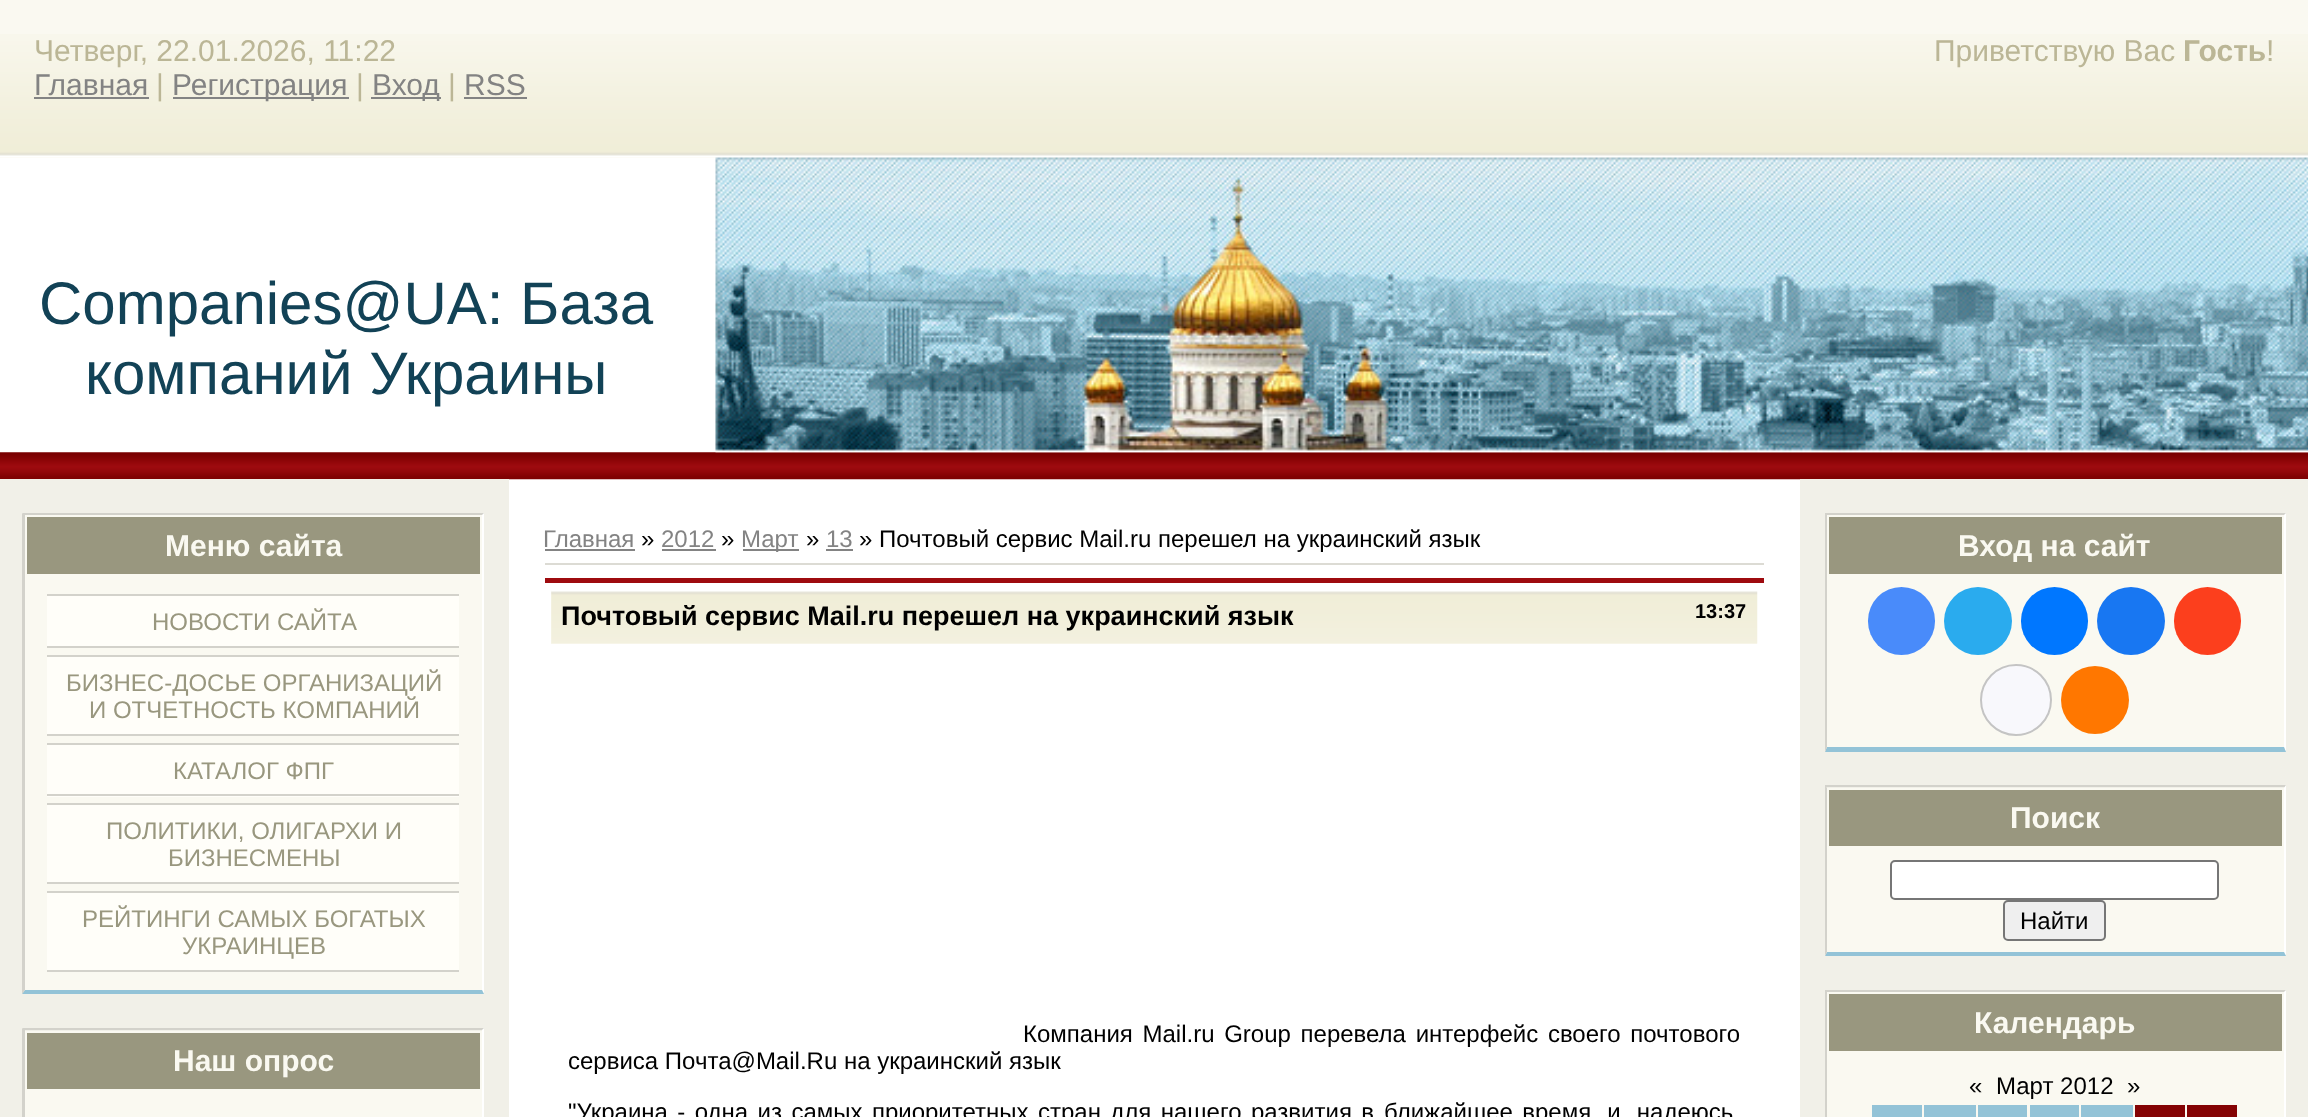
<?xml version="1.0" encoding="UTF-8"?>
<svg xmlns="http://www.w3.org/2000/svg" width="2308" height="1117">
    <rect width="100%" height="100%" fill="#FFFFFF"/>
    <rect x="0" y="0" width="2308" height="158" fill="#FAF9F1"/>
    <image x="0" y="34" width="2308" height="124" href="img_01.png"/>
    <text x="34" y="61" font-family="Liberation Sans" font-size="30" fill="#BBB696">Четверг, 22.01.2026, 11:22</text>
    <text x="34" y="95" font-family="Liberation Sans" font-size="30" fill="#838383">Главная</text>
    <rect x="34" y="97" width="115" height="2" fill="#838383"/>
    <text x="156" y="95" font-family="Liberation Sans" font-size="30" fill="#BBB696">|</text>
    <rect x="173" y="97" width="176" height="2" fill="#838383"/>
    <text x="172" y="95" font-family="Liberation Sans" font-size="30" fill="#838383">Регистрация</text>
    <text x="356" y="95" font-family="Liberation Sans" font-size="30" fill="#BBB696">|</text>
    <rect x="371" y="97" width="70" height="2" fill="#838383"/>
    <text x="372" y="95" font-family="Liberation Sans" font-size="30" fill="#838383">Вход</text>
    <text x="448" y="95" font-family="Liberation Sans" font-size="30" fill="#BBB696">|</text>
    <text x="464" y="95" font-family="Liberation Sans" font-size="30" fill="#838383">RSS</text>
    <rect x="464" y="97" width="63" height="2" fill="#838383"/>
    <text x="1934" y="61" font-family="Liberation Sans" font-size="30" fill="#BBB696">Приветствую Вас</text>
    <text x="2183" y="61" font-family="Liberation Sans" font-size="30" font-weight="700" fill="#BBB696">Гость</text>
    <text x="2266" y="61" font-family="Liberation Sans" font-size="30" fill="#BBB696">!</text>
    <text x="39" y="324" font-family="Liberation Sans" font-size="60" fill="#124256">Companies@UA: База</text>
    <text x="85" y="394" font-family="Liberation Sans" font-size="60" fill="#124256">компаний Украины</text>
    <image x="0" y="452" width="2308" height="28" href="img_03.png"/>
    <image x="715" y="157" width="1593" height="296" href="img_02.png"/>
    <rect x="0" y="479" width="509" height="638" fill="#F1F0E8"/>
    <rect x="25" y="576" width="457" height="414" fill="#FAF9F1"/>
    <rect x="23" y="513" width="461" height="2" fill="#D3D2CB"/>
    <path d="M 484 513 V 994 L 482 990 V 515 Z" fill="#FFFFFF"/>
    <path d="M 484 994 H 22 L 25 990 H 482 Z" fill="#93C3D7"/>
    <path d="M 22 994 V 513 L 25 515 V 990 Z" fill="#D3D2CB"/>
    <rect x="26" y="516" width="455" height="59" fill="#99977F" stroke="#FAF9F1" stroke-width="2"/>
    <text x="165" y="556" font-family="Liberation Sans" font-size="30" font-weight="700" fill="#FAF9F1">Меню сайта</text>
    <rect x="47" y="596" width="412" height="50" fill="#FFFEF9"/>
    <rect x="47" y="594" width="412" height="2" fill="#D3D2CB"/>
    <rect x="47" y="646" width="412" height="2" fill="#D3D2CB"/>
    <text x="152" y="630" font-family="Liberation Sans" font-size="24" fill="#99977F">НОВОСТИ САЙТА</text>
    <rect x="47" y="657" width="412" height="77" fill="#FFFEF9"/>
    <rect x="47" y="655" width="412" height="2" fill="#D3D2CB"/>
    <rect x="47" y="734" width="412" height="2" fill="#D3D2CB"/>
    <text x="66" y="691" font-family="Liberation Sans" font-size="24" fill="#99977F">БИЗНЕС-ДОСЬЕ ОРГАНИЗАЦИЙ</text>
    <text x="89" y="718" font-family="Liberation Sans" font-size="24" fill="#99977F">И ОТЧЕТНОСТЬ КОМПАНИЙ</text>
    <rect x="47" y="745" width="412" height="52" fill="#FFFEF9"/>
    <rect x="47" y="743" width="412" height="2" fill="#D3D2CB"/>
    <rect x="47" y="794" width="412" height="2" fill="#D3D2CB"/>
    <text x="173" y="779" font-family="Liberation Sans" font-size="24" fill="#99977F">КАТАЛОГ ФПГ</text>
    <rect x="47" y="805" width="412" height="77" fill="#FFFEF9"/>
    <rect x="47" y="803" width="412" height="2" fill="#D3D2CB"/>
    <rect x="47" y="882" width="412" height="2" fill="#D3D2CB"/>
    <text x="106" y="839" font-family="Liberation Sans" font-size="24" fill="#99977F">ПОЛИТИКИ, ОЛИГАРХИ И</text>
    <text x="168" y="866" font-family="Liberation Sans" font-size="24" fill="#99977F">БИЗНЕСМЕНЫ</text>
    <rect x="47" y="893" width="412" height="77" fill="#FFFEF9"/>
    <rect x="47" y="891" width="412" height="2" fill="#D3D2CB"/>
    <rect x="47" y="970" width="412" height="2" fill="#D3D2CB"/>
    <text x="82" y="927" font-family="Liberation Sans" font-size="24" fill="#99977F">РЕЙТИНГИ САМЫХ БОГАТЫХ</text>
    <text x="182" y="954" font-family="Liberation Sans" font-size="24" fill="#99977F">УКРАИНЦЕВ</text>
    <rect x="25" y="1091" width="457" height="26" fill="#FAF9F1"/>
    <rect x="23" y="1028" width="461" height="2" fill="#D3D2CB"/>
    <path d="M 484 1028 V 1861 L 482 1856 V 1030 Z" fill="#FFFFFF"/>
    <path d="M 22 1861 V 1028 L 25 1030 V 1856 Z" fill="#D3D2CB"/>
    <rect x="26" y="1032" width="455" height="58" fill="#99977F" stroke="#FAF9F1" stroke-width="2"/>
    <text x="173" y="1071" font-family="Liberation Sans" font-size="30" font-weight="700" fill="#FAF9F1">Наш опрос</text>
    <text x="543" y="547" font-family="Liberation Sans" font-size="24" fill="#838383">Главная</text>
    <rect x="545" y="549" width="90" height="2" fill="#838383"/>
    <text x="641" y="547" font-family="Liberation Sans" font-size="24" fill="#000000">»</text>
    <text x="661" y="547" font-family="Liberation Sans" font-size="24" fill="#838383">2012</text>
    <rect x="662" y="549" width="54" height="2" fill="#838383"/>
    <text x="721" y="547" font-family="Liberation Sans" font-size="24" fill="#000000">»</text>
    <rect x="743" y="549" width="56" height="2" fill="#838383"/>
    <text x="741" y="547" font-family="Liberation Sans" font-size="24" fill="#838383">Март</text>
    <text x="806" y="547" font-family="Liberation Sans" font-size="24" fill="#000000">»</text>
    <text x="826" y="547" font-family="Liberation Sans" font-size="24" fill="#838383">13</text>
    <rect x="826" y="549" width="27" height="2" fill="#838383"/>
    <text x="859" y="547" font-family="Liberation Sans" font-size="24" fill="#000000">» Почтовый сервис Mail.ru перешел на украинский язык</text>
    <rect x="545" y="563" width="1219" height="2" fill="#DCDBD4"/>
    <rect x="545" y="578" width="1219" height="5" fill="#9E0B0F"/>
    <rect x="551" y="590" width="1206" height="54" fill="#FAF9F1"/>
    <image x="551" y="590" width="1207" height="54" href="img_04.png"/>
    <text x="561" y="625" font-family="Liberation Sans" font-size="27" font-weight="700" fill="#000000">Почтовый сервис Mail.ru перешел на украинский язык</text>
    <text x="1695" y="618" font-family="Liberation Sans" font-size="20" font-weight="700" fill="#000000">13:37</text>
    <text x="1023" y="1042" word-spacing="3" font-family="Liberation Sans" font-size="24" fill="#000000">Компания Mail.ru Group перевела интерфейс своего почтового</text>
    <text x="568" y="1069" font-family="Liberation Sans" font-size="24" fill="#000000">сервиса Почта@Mail.Ru на украинский язык</text>
    <text x="568" y="1120" word-spacing="2.75" font-family="Liberation Sans" font-size="24" fill="#000000">"Украина - одна из самых приоритетных стран для нашего развития в</text>
    <text x="1384" y="1120" word-spacing="2.75" font-family="Liberation Sans" font-size="24" fill="#000000">ближайшее время, и, надеюсь</text>
    <rect x="1800" y="479" width="508" height="638" fill="#F1F0E8"/>
    <rect x="1827" y="576" width="457" height="171" fill="#FAF9F1"/>
    <rect x="1825" y="513" width="461" height="2" fill="#D3D2CB"/>
    <path d="M 2286 513 V 752 L 2284 747 V 515 Z" fill="#FFFFFF"/>
    <path d="M 2286 752 H 1825 L 1827 747 H 2284 Z" fill="#93C3D7"/>
    <path d="M 1825 752 V 513 L 1827 515 V 747 Z" fill="#D3D2CB"/>
    <rect x="1828" y="516" width="455" height="59" fill="#99977F" stroke="#FAF9F1" stroke-width="2"/>
    <text x="1958" y="556" font-family="Liberation Sans" font-size="30" font-weight="700" fill="#FAF9F1">Вход на сайт</text>
    <rect x="1868" y="587" width="67" height="68" rx="33.5" fill="#498BFA"/>
    <circle cx="1978" cy="621" r="34" fill="#2AABEE"/>
    <rect x="2021" y="587" width="67" height="68" rx="33.5" fill="#0077FF"/>
    <circle cx="2131" cy="621" r="34" fill="#1877F2"/>
    <rect x="2174" y="587" width="67" height="68" rx="33.5" fill="#FC3F1D"/>
    <circle cx="2016" cy="700" r="35" fill="#F8F8FC" stroke="#C4C4C4" stroke-width="2"/>
    <circle cx="2095" cy="700" r="34" fill="#FF7700"/>
    <rect x="1827" y="848" width="457" height="104" fill="#FAF9F1"/>
    <rect x="1825" y="785" width="461" height="2" fill="#D3D2CB"/>
    <path d="M 2286 785 V 956 L 2284 952 V 788 Z" fill="#FFFFFF"/>
    <path d="M 2286 956 H 1825 L 1827 952 H 2284 Z" fill="#93C3D7"/>
    <path d="M 1825 956 V 785 L 1827 788 V 952 Z" fill="#D3D2CB"/>
    <rect x="1828" y="789" width="455" height="58" fill="#99977F" stroke="#FAF9F1" stroke-width="2"/>
    <text x="2010" y="828" font-family="Liberation Sans" font-size="30" font-weight="700" fill="#FAF9F1">Поиск</text>
    <rect x="1891" y="861" width="327" height="38" rx="4" fill="#FFFFFF" stroke="#767676" stroke-width="2"/>
    <rect x="2004" y="901" width="101" height="39" rx="4" fill="#EFEFEF" stroke="#767676" stroke-width="2"/>
    <text x="2020" y="929" font-family="Liberation Sans" font-size="24" fill="#000000">Найти</text>
    <rect x="1827" y="1053" width="457" height="64" fill="#FAF9F1"/>
    <rect x="1825" y="990" width="461" height="2" fill="#D3D2CB"/>
    <path d="M 2286 990 V 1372 L 2284 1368 V 992 Z" fill="#FFFFFF"/>
    <path d="M 1825 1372 V 990 L 1827 992 V 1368 Z" fill="#D3D2CB"/>
    <rect x="1828" y="993" width="455" height="59" fill="#99977F" stroke="#FAF9F1" stroke-width="2"/>
    <text x="1974" y="1033" font-family="Liberation Sans" font-size="30" font-weight="700" fill="#FAF9F1">Календарь</text>
    <text x="1969" y="1094" font-family="Liberation Sans" font-size="24" fill="#000000">«</text>
    <text x="1996" y="1094" font-family="Liberation Sans" font-size="24" fill="#000000">Март 2012</text>
    <text x="2127" y="1094" font-family="Liberation Sans" font-size="24" fill="#000000">»</text>
    <rect x="1872" y="1105" width="50" height="12" fill="#93C3D7"/>
    <rect x="1924" y="1105" width="52" height="12" fill="#93C3D7"/>
    <rect x="1978" y="1105" width="49" height="12" fill="#93C3D7"/>
    <rect x="2030" y="1105" width="49" height="12" fill="#93C3D7"/>
    <rect x="2081" y="1105" width="52" height="12" fill="#93C3D7"/>
    <rect x="2135" y="1105" width="50" height="12" fill="#840304"/>
    <rect x="2187" y="1105" width="50" height="12" fill="#840304"/>
</svg>
